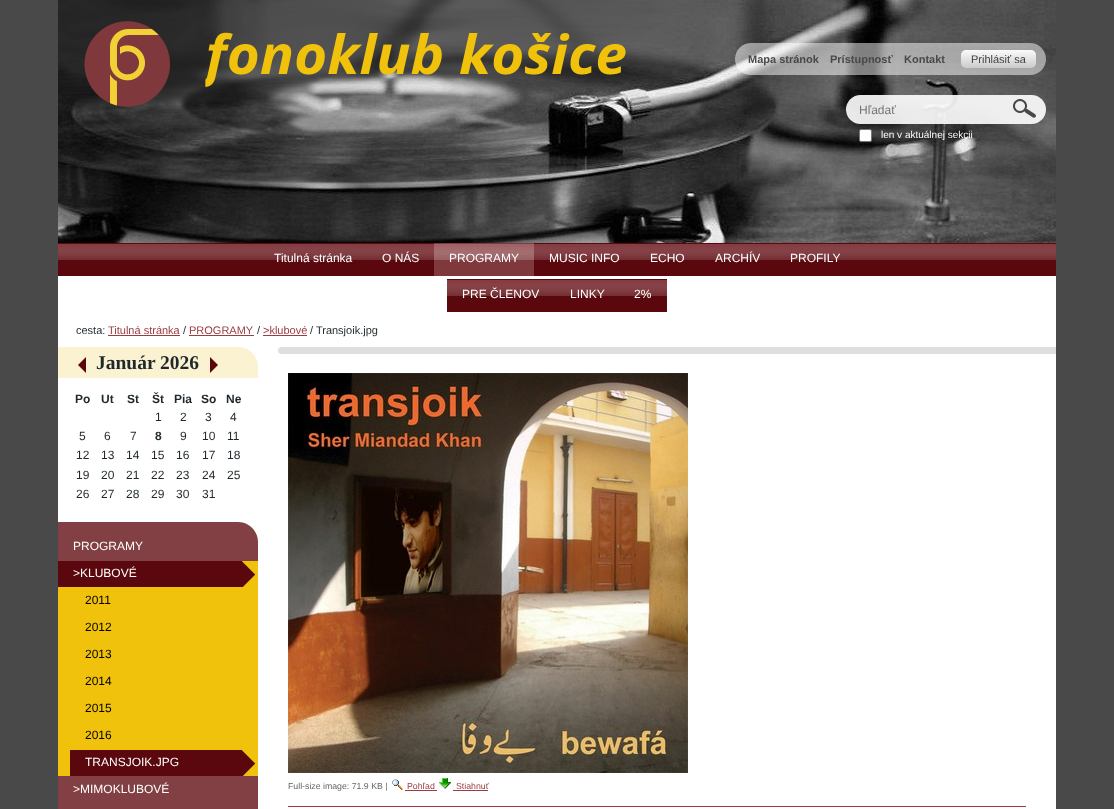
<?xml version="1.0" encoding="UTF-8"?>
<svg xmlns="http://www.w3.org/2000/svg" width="1114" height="809">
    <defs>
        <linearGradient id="g1" gradientUnits="userSpaceOnUse" x1="999" y1="50" x2="999" y2="68"><stop offset="0" stop-color="#FBFBFB"/><stop offset="1" stop-color="#CBCBCB"/></linearGradient>
    </defs>
    <rect width="100%" height="100%" fill="#4A4949"/>
    <rect x="58" y="276" width="998" height="533" fill="#FFFFFF"/>
    <image x="58" y="0" width="998" height="243" href="img_01.png"/>
    <image x="84" y="21" width="542" height="86" href="img_02.png"/>
    <path d="M 751 43 H 961 V 75 H 751 C 742 75 735 68 735 59 C 735 50 742 43 751 43 Z" fill="#FFFFFF" fill-opacity="0.5"/>
    <text x="748" y="63" font-family="Liberation Sans" font-size="11" font-weight="700" fill="#4A4949">Mapa stránok</text>
    <text x="830" y="63" font-family="Liberation Sans" font-size="11" font-weight="700" fill="#4A4949">Prístupnosť</text>
    <text x="904" y="63" font-family="Liberation Sans" font-size="11" font-weight="700" fill="#4A4949">Kontakt</text>
    <path d="M 961 43 H 1030 C 1039 43 1046 50 1046 59 C 1046 68 1039 75 1030 75 H 961 Z" fill="#FFFFFF" fill-opacity="0.5"/>
    <rect x="961" y="50" width="75" height="18" rx="5" fill="url(#g1)"/>
    <text x="971" y="63" font-family="Liberation Sans" font-size="11" fill="#424242">Prihlásiť sa</text>
    <rect x="846" y="95" width="200" height="29" rx="14.5" fill="#FFFFFF" fill-opacity="0.9"/>
    <text x="859" y="114" font-family="Liberation Sans" font-size="12" fill="#757575">Hľadať</text>
    <image x="1013" y="99" width="23" height="19" href="img_03.png"/>
    <rect x="859.5" y="129.5" width="12" height="12" rx="1.5" fill="#FFFFFF" stroke="#767676"/>
    <text x="881" y="138" font-family="Liberation Sans" font-size="10" fill="#FFFFFF">len v aktuálnej sekcii</text>
    <image x="58" y="243" width="998" height="33" href="img_04.png"/>
    <text x="274" y="262" font-family="Liberation Sans" font-size="12" fill="#FFFFFF">Titulná stránka</text>
    <text x="382" y="262" font-family="Liberation Sans" font-size="12" fill="#FFFFFF">O NÁS</text>
    <rect x="434" y="243" width="100" height="33" fill="#7F383C"/>
    <image x="434" y="244" width="100" height="16" href="img_05.png"/>
    <text x="449" y="262" font-family="Liberation Sans" font-size="12" fill="#FFFFFF">PROGRAMY</text>
    <text x="549" y="262" font-family="Liberation Sans" font-size="12" fill="#FFFFFF">MUSIC INFO</text>
    <text x="650" y="262" font-family="Liberation Sans" font-size="12" fill="#FFFFFF">ECHO</text>
    <text x="715" y="262" font-family="Liberation Sans" font-size="12" fill="#FFFFFF">ARCHÍV</text>
    <text x="790" y="262" font-family="Liberation Sans" font-size="12" fill="#FFFFFF">PROFILY</text>
    <image x="447" y="279" width="108" height="33" href="img_06.png"/>
    <text x="462" y="298" font-family="Liberation Sans" font-size="12" fill="#FFFFFF">PRE ČLENOV</text>
    <image x="555" y="279" width="64" height="33" href="img_07.png"/>
    <text x="570" y="298" font-family="Liberation Sans" font-size="12" fill="#FFFFFF">LINKY</text>
    <image x="619" y="279" width="48" height="33" href="img_08.png"/>
    <text x="634" y="298" font-family="Liberation Sans" font-size="12" fill="#FFFFFF">2%</text>
    <text x="76" y="334" font-family="Liberation Sans" font-size="11" fill="#1F282C">cesta:</text>
    <text x="108" y="334" font-family="Liberation Sans" font-size="11" fill="#9A3D42">Titulná stránka</text>
    <rect x="108" y="335" width="72" height="1" fill="#9A3D42"/>
    <text x="183" y="334" font-family="Liberation Sans" font-size="11" fill="#1F282C">/</text>
    <text x="189" y="334" font-family="Liberation Sans" font-size="11" fill="#9A3D42">PROGRAMY</text>
    <rect x="189" y="335" width="65" height="1" fill="#9A3D42"/>
    <text x="257" y="334" font-family="Liberation Sans" font-size="11" fill="#1F282C">/</text>
    <text x="263" y="334" font-family="Liberation Sans" font-size="11" fill="#9A3D42">&gt;klubové</text>
    <rect x="263" y="335" width="44" height="1" fill="#9A3D42"/>
    <text x="310" y="334" font-family="Liberation Sans" font-size="11" fill="#1F282C">/ Transjoik.jpg</text>
    <path d="M 58 347 H 238 C 249 347 258 356 258 367 V 378 H 58 Z" fill="#FBF2D1"/>
    <path d="M 86 357 V 373 L 78 365 Z" fill="#5A080D"/>
    <text x="96" y="369" font-family="Liberation Serif" font-size="19.5" font-weight="700" fill="#1F282C">Január 2026</text>
    <path d="M 210 373 V 357 L 218 365 Z" fill="#5A080D"/>
    <text x="75" y="403" font-family="Liberation Sans" font-size="12" font-weight="700" fill="#1F282C">Po</text>
    <text x="101" y="403" font-family="Liberation Sans" font-size="12" font-weight="700" fill="#1F282C">Ut</text>
    <text x="127" y="403" font-family="Liberation Sans" font-size="12" font-weight="700" fill="#1F282C">St</text>
    <text x="152" y="403" font-family="Liberation Sans" font-size="12" font-weight="700" fill="#1F282C">Št</text>
    <text x="174" y="403" font-family="Liberation Sans" font-size="12" font-weight="700" fill="#1F282C">Pia</text>
    <text x="201" y="403" font-family="Liberation Sans" font-size="12" font-weight="700" fill="#1F282C">So</text>
    <text x="226" y="403" font-family="Liberation Sans" font-size="12" font-weight="700" fill="#1F282C">Ne</text>
    <text x="155" y="421" font-family="Liberation Sans" font-size="12" fill="#1F282C">1</text>
    <text x="180" y="421" font-family="Liberation Sans" font-size="12" fill="#1F282C">2</text>
    <text x="205" y="421" font-family="Liberation Sans" font-size="12" fill="#1F282C">3</text>
    <text x="230" y="421" font-family="Liberation Sans" font-size="12" fill="#1F282C">4</text>
    <text x="79" y="440" font-family="Liberation Sans" font-size="12" fill="#1F282C">5</text>
    <text x="104" y="440" font-family="Liberation Sans" font-size="12" fill="#1F282C">6</text>
    <text x="130" y="440" font-family="Liberation Sans" font-size="12" fill="#1F282C">7</text>
    <text x="155" y="440" font-family="Liberation Sans" font-size="12" font-weight="700" fill="#1F282C">8</text>
    <text x="180" y="440" font-family="Liberation Sans" font-size="12" fill="#1F282C">9</text>
    <text x="202" y="440" font-family="Liberation Sans" font-size="12" fill="#1F282C">10</text>
    <text x="227" y="440" font-family="Liberation Sans" font-size="12" fill="#1F282C">11</text>
    <text x="76" y="459" font-family="Liberation Sans" font-size="12" fill="#1F282C">12</text>
    <text x="101" y="459" font-family="Liberation Sans" font-size="12" fill="#1F282C">13</text>
    <text x="126" y="459" font-family="Liberation Sans" font-size="12" fill="#1F282C">14</text>
    <text x="151" y="459" font-family="Liberation Sans" font-size="12" fill="#1F282C">15</text>
    <text x="176" y="459" font-family="Liberation Sans" font-size="12" fill="#1F282C">16</text>
    <text x="202" y="459" font-family="Liberation Sans" font-size="12" fill="#1F282C">17</text>
    <text x="227" y="459" font-family="Liberation Sans" font-size="12" fill="#1F282C">18</text>
    <text x="76" y="479" font-family="Liberation Sans" font-size="12" fill="#1F282C">19</text>
    <text x="101" y="479" font-family="Liberation Sans" font-size="12" fill="#1F282C">20</text>
    <text x="126" y="479" font-family="Liberation Sans" font-size="12" fill="#1F282C">21</text>
    <text x="151" y="479" font-family="Liberation Sans" font-size="12" fill="#1F282C">22</text>
    <text x="176" y="479" font-family="Liberation Sans" font-size="12" fill="#1F282C">23</text>
    <text x="202" y="479" font-family="Liberation Sans" font-size="12" fill="#1F282C">24</text>
    <text x="227" y="479" font-family="Liberation Sans" font-size="12" fill="#1F282C">25</text>
    <text x="76" y="498" font-family="Liberation Sans" font-size="12" fill="#1F282C">26</text>
    <text x="101" y="498" font-family="Liberation Sans" font-size="12" fill="#1F282C">27</text>
    <text x="126" y="498" font-family="Liberation Sans" font-size="12" fill="#1F282C">28</text>
    <text x="151" y="498" font-family="Liberation Sans" font-size="12" fill="#1F282C">29</text>
    <text x="176" y="498" font-family="Liberation Sans" font-size="12" fill="#1F282C">30</text>
    <text x="202" y="498" font-family="Liberation Sans" font-size="12" fill="#1F282C">31</text>
    <path d="M 58 522 H 238 C 249 522 258 531 258 542 V 809 C 258 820 249 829 238 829 H 58 Z" fill="#824044"/>
    <text x="73" y="550" font-family="Liberation Sans" font-size="12" fill="#FFFFFF">PROGRAMY</text>
    <rect x="58" y="561" width="200" height="215" fill="#F0C20B"/>
    <image x="58" y="561" width="197" height="26" href="img_09.png"/>
    <text x="73" y="577" font-family="Liberation Sans" font-size="12" fill="#FFFFFF">&gt;KLUBOVÉ</text>
    <text x="85" y="604" font-family="Liberation Sans" font-size="12" fill="#000000">2011</text>
    <text x="85" y="631" font-family="Liberation Sans" font-size="12" fill="#000000">2012</text>
    <text x="85" y="658" font-family="Liberation Sans" font-size="12" fill="#000000">2013</text>
    <text x="85" y="685" font-family="Liberation Sans" font-size="12" fill="#000000">2014</text>
    <text x="85" y="712" font-family="Liberation Sans" font-size="12" fill="#000000">2015</text>
    <text x="85" y="739" font-family="Liberation Sans" font-size="12" fill="#000000">2016</text>
    <image x="70" y="750" width="185" height="26" href="img_10.png"/>
    <text x="85" y="766" font-family="Liberation Sans" font-size="12" fill="#FFFFFF">TRANSJOIK.JPG</text>
    <text x="73" y="793" font-family="Liberation Sans" font-size="12" fill="#FFFFFF">&gt;MIMOKLUBOVÉ</text>
    <path d="M 281.5 347 H 1056 V 354 H 281.5 C 279.5 354 278 352.5 278 350.5 C 278 348.5 279.5 347 281.5 347 Z" fill="#DFDFDF"/>
    <image x="288" y="373" width="400" height="400" href="img_11.png"/>
    <text x="288" y="789" font-family="Liberation Sans" font-size="8.75" fill="#666666">Full-size image: 71.9 KB |</text>
    <image x="392" y="779" width="11" height="11" href="img_12.png"/>
    <text x="407" y="789" font-family="Liberation Sans" font-size="8.75" fill="#9A3D42">Pohľad</text>
    <rect x="405" y="790" width="32" height="1" fill="#9A3D42"/>
    <image x="439" y="778" width="12" height="11" href="img_13.png"/>
    <text x="456" y="789" font-family="Liberation Sans" font-size="8.75" fill="#9A3D42">Stiahnuť</text>
    <rect x="453" y="790" width="35" height="1" fill="#9A3D42"/>
    <rect x="288" y="806" width="738" height="1" fill="#9A3D42"/>
</svg>
